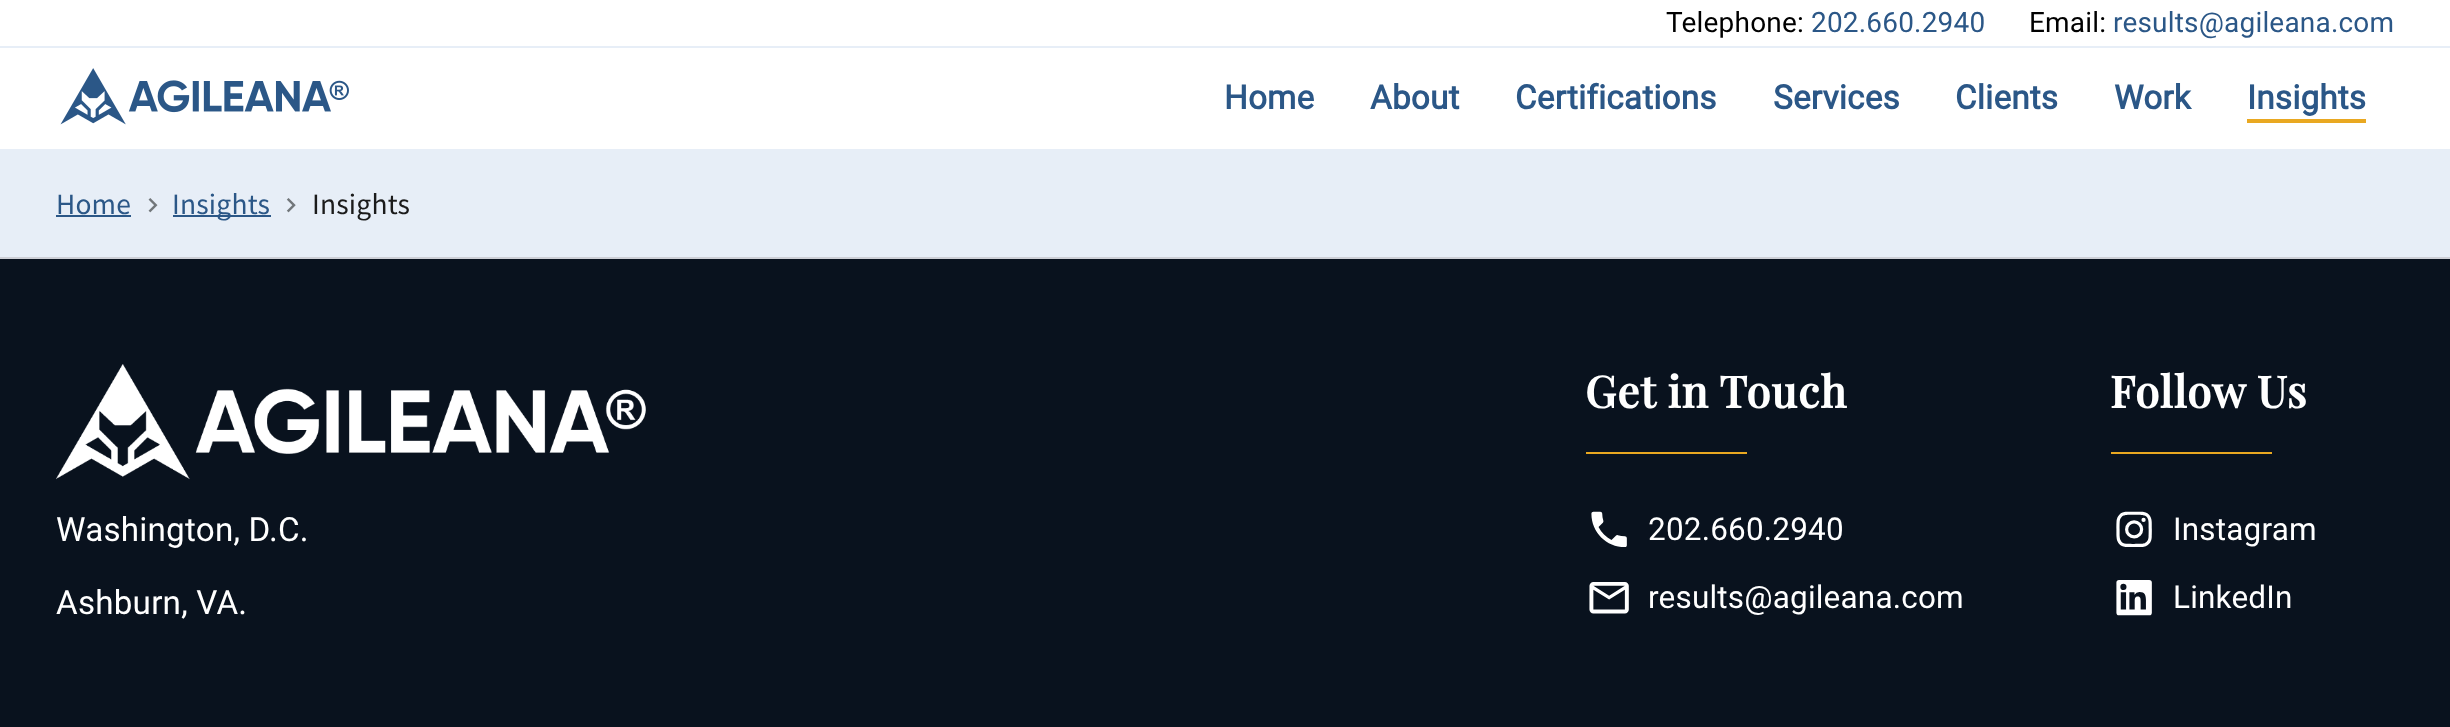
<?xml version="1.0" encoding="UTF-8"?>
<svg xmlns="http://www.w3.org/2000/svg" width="2450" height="727">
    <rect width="100%" height="100%" fill="#09121E"/>
    <rect x="0" y="0" width="2450" height="149" fill="#FFFFFF"/>
    <rect x="0" y="46" width="2450" height="2" fill="#E7EEF7"/>
    <text x="1666" y="32" font-family="Roboto" font-size="28" letter-spacing="0.2" fill="#000000">Telephone:</text>
    <text x="1811" y="32" font-family="Roboto" font-size="28" letter-spacing="0.2" fill="#2B5787">202.660.2940</text>
    <text x="2029" y="32" font-family="Roboto" font-size="28" letter-spacing="0.2" fill="#000000">Email:</text>
    <text x="2113" y="32" font-family="Roboto" font-size="28" letter-spacing="0.2" fill="#2B5787">results@agileana.com</text>
    <image x="60" y="68" width="289" height="57" href="img_01.png"/>
    <text x="1224" y="109" font-family="Roboto" font-size="33.25" font-weight="700" letter-spacing="0.2" fill="#2B5787">Home</text>
    <text x="1370" y="109" font-family="Roboto" font-size="33.25" font-weight="700" letter-spacing="0.2" fill="#2B5787">About</text>
    <text x="1515" y="109" font-family="Roboto" font-size="33.25" font-weight="700" letter-spacing="0.2" fill="#2B5787">Certifications</text>
    <text x="1773" y="109" font-family="Roboto" font-size="33.25" font-weight="700" letter-spacing="0.2" fill="#2B5787">Services</text>
    <text x="1955" y="109" font-family="Roboto" font-size="33.25" font-weight="700" letter-spacing="0.2" fill="#2B5787">Clients</text>
    <text x="2114" y="109" font-family="Roboto" font-size="33.25" font-weight="700" letter-spacing="0.2" fill="#2B5787">Work</text>
    <text x="2247" y="109" font-family="Roboto" font-size="33.25" font-weight="700" letter-spacing="0.2" fill="#2B5787">Insights</text>
    <rect x="2247" y="119" width="119" height="4" fill="#E9A821"/>
    <rect x="0" y="149" width="2450" height="108" fill="#E7EEF7"/>
    <rect x="0" y="257" width="2450" height="2" fill="#CDCFD6"/>
    <text x="56" y="214" font-family="Source Sans Pro" font-size="29.5" letter-spacing="0.2" fill="#2B5787">Home</text>
    <rect x="56" y="215" width="75" height="2" fill="#2B5787"/>
    <image x="148" y="198" width="10" height="15" href="img_02.png"/>
    <rect x="173" y="215" width="98" height="2" fill="#2B5787"/>
    <text x="172" y="214" font-family="Source Sans Pro" font-size="29.5" letter-spacing="0.2" fill="#2B5787">Insights</text>
    <image x="286" y="198" width="10" height="15" href="img_03.png"/>
    <text x="312" y="214" font-family="Source Sans Pro" font-size="29.5" letter-spacing="0.2" fill="#1B1B1B">Insights</text>
    <image x="56" y="364" width="590" height="116" href="img_04.png"/>
    <text x="56" y="541" font-family="Roboto" font-size="33.25" letter-spacing="0.2" fill="#FFFFFF">Washington, D.C.</text>
    <text x="56" y="614" font-family="Roboto" font-size="33.25" letter-spacing="0.2" fill="#FFFFFF">Ashburn, VA.</text>
    <text x="1585" y="408" font-family="Playfair Display" font-size="43.75" font-weight="700" letter-spacing="0.9" fill="#FFFFFF">Get in Touch</text>
    <rect x="1586" y="452" width="161" height="2" fill="#E9A821"/>
    <image x="1591" y="511" width="36" height="36" href="img_05.png"/>
    <text x="1648" y="540" font-family="Roboto" font-size="31.5" letter-spacing="0.2" fill="#FFFFFF">202.660.2940</text>
    <image x="1589" y="582" width="40" height="32" href="img_06.png"/>
    <text x="1648" y="608" font-family="Roboto" font-size="31.5" letter-spacing="0.2" fill="#FFFFFF">results@agileana.com</text>
    <text x="2110" y="408" font-family="Playfair Display" font-size="43.75" font-weight="700" letter-spacing="0.9" fill="#FFFFFF">Follow Us</text>
    <rect x="2111" y="452" width="161" height="2" fill="#E9A821"/>
    <image x="2116" y="511" width="36" height="36" href="img_07.png"/>
    <text x="2173" y="540" font-family="Roboto" font-size="31.5" letter-spacing="0.2" fill="#FFFFFF">Instagram</text>
    <image x="2116" y="580" width="36" height="36" href="img_08.png"/>
    <text x="2173" y="608" font-family="Roboto" font-size="31.5" letter-spacing="0.2" fill="#FFFFFF">LinkedIn</text>
</svg>
